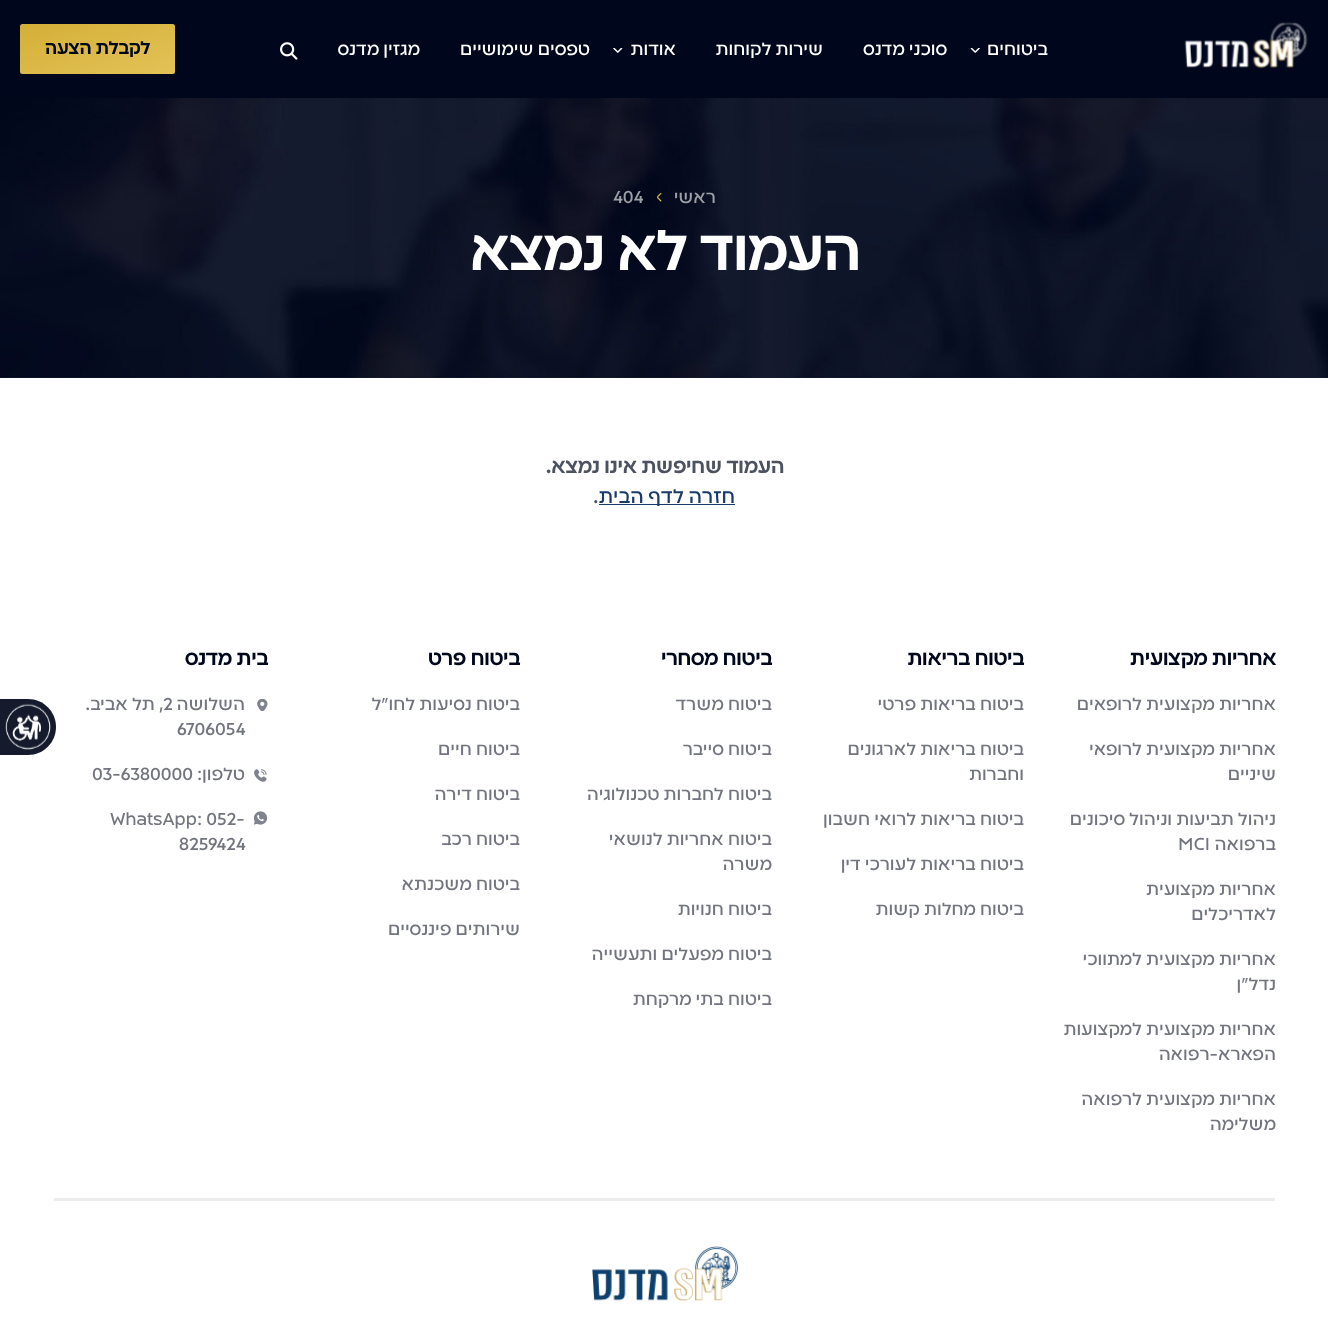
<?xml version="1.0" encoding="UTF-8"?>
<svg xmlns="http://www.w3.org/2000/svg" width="1328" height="1326">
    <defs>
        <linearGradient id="g1" gradientUnits="userSpaceOnUse" x1="83" y1="3.5" x2="112" y2="94"><stop offset="0" stop-color="#D4AF37"/><stop offset="1" stop-color="#E3C257"/></linearGradient>
    </defs>
    <rect width="100%" height="100%" fill="#FFFFFF"/>
    <rect x="0" y="0" width="1328" height="98" fill="#00071C"/>
    <image x="1184" y="22" width="124" height="47" href="img_01.png"/>
    <text x="1048" y="55" font-family="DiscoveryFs" font-size="20" direction="rtl" fill="#FFFFFF">ביטוחים</text>
    <image x="970" y="48" width="10" height="5" href="img_02.png"/>
    <text x="947" y="55" font-family="DiscoveryFs" font-size="20" direction="rtl" fill="#FFFFFF">סוכני מדנס</text>
    <text x="823" y="55" font-family="DiscoveryFs" font-size="20" direction="rtl" fill="#FFFFFF">שירות לקוחות</text>
    <text x="676" y="55" font-family="DiscoveryFs" font-size="20" direction="rtl" fill="#FFFFFF">אודות</text>
    <image x="613" y="48" width="10" height="5" href="img_03.png"/>
    <text x="590" y="55" font-family="DiscoveryFs" font-size="20" direction="rtl" fill="#FFFFFF">טפסים שימושיים</text>
    <text x="420" y="55" font-family="DiscoveryFs" font-size="20" direction="rtl" fill="#FFFFFF">מגזין מדנס</text>
    <image x="280" y="42" width="18" height="18" href="img_04.png"/>
    <rect x="20" y="24" width="155" height="50" rx="2.5" fill="url(#g1)"/>
    <text x="150" y="54" font-family="DiscoveryFs" font-size="20" font-weight="700" direction="rtl" fill="#00071B">לקבלת הצעה</text>
    <rect x="0" y="377" width="1328" height="1" fill="#151A2D"/>
    <image x="0" y="98" width="1328" height="280" href="img_05.png"/>
    <image x="657" y="193" width="5" height="9" href="img_06.png"/>
    <text x="716" y="203" font-family="DiscoveryFs" font-size="20" direction="rtl" fill="#9EA0A7">ראשי</text>
    <text x="613" y="203" font-family="DiscoveryFs" font-size="20" fill="#9EA0A7">404</text>
    <text x="860" y="270" font-family="DiscoveryFs" font-size="62.5" font-weight="700" direction="rtl" fill="#FFFFFF">העמוד לא נמצא</text>
    <text x="784" y="473" font-family="DiscoveryFs" font-size="22.5" font-weight="700" direction="rtl" fill="#4D5260">העמוד שחיפשת אינו נמצא.</text>
    <rect x="599" y="504" width="136" height="1" fill="#1A3A6A"/>
    <text x="735" y="503" font-family="DiscoveryFs" font-size="22.5" direction="rtl" fill="#1A3A6A">חזרה לדף הבית</text>
    <text x="593" y="503" font-family="DiscoveryFs" font-size="22.5" fill="#4D5260">.</text>
    <rect x="54" y="1198" width="1221" height="3" fill="#EDEDED"/>
    <text x="1276" y="665" font-family="DiscoveryFs" font-size="22.5" font-weight="700" direction="rtl" fill="#00071B">אחריות מקצועית</text>
    <text x="1276" y="710" font-family="DiscoveryFs" font-size="20" direction="rtl" fill="#72757E">אחריות מקצועית לרופאים</text>
    <text font-family="DiscoveryFs" font-size="20" direction="rtl" fill="#72757E">
        <tspan x="1276" y="755">אחריות מקצועית לרופאי</tspan>
        <tspan x="1276" y="780">שיניים</tspan>
    </text>
    <text font-family="DiscoveryFs" font-size="20" direction="rtl" fill="#72757E">
        <tspan x="1276" y="825">ניהול תביעות וניהול סיכונים</tspan>
        <tspan x="1276" y="850">ברפואה</tspan>
    </text>
    <text x="1178" y="850" font-family="DiscoveryFs" font-size="20" fill="#72757E">MCI</text>
    <text font-family="DiscoveryFs" font-size="20" direction="rtl" fill="#72757E">
        <tspan x="1276" y="895">אחריות מקצועית</tspan>
        <tspan x="1276" y="920">לאדריכלים</tspan>
    </text>
    <text font-family="DiscoveryFs" font-size="20" direction="rtl" fill="#72757E">
        <tspan x="1276" y="965">אחריות מקצועית למתווכי</tspan>
        <tspan x="1276" y="990">נדל"ן</tspan>
    </text>
    <text font-family="DiscoveryFs" font-size="20" direction="rtl" fill="#72757E">
        <tspan x="1276" y="1035">אחריות מקצועית למקצועות</tspan>
        <tspan x="1276" y="1060">הפארא-רפואה</tspan>
    </text>
    <text font-family="DiscoveryFs" font-size="20" direction="rtl" fill="#72757E">
        <tspan x="1276" y="1105">אחריות מקצועית לרפואה</tspan>
        <tspan x="1276" y="1130">משלימה</tspan>
    </text>
    <text x="1024" y="665" font-family="DiscoveryFs" font-size="22.5" font-weight="700" direction="rtl" fill="#00071B">ביטוח בריאות</text>
    <text x="1024" y="710" font-family="DiscoveryFs" font-size="20" direction="rtl" fill="#72757E">ביטוח בריאות פרטי</text>
    <text font-family="DiscoveryFs" font-size="20" direction="rtl" fill="#72757E">
        <tspan x="1024" y="755">ביטוח בריאות לארגונים</tspan>
        <tspan x="1024" y="780">וחברות</tspan>
    </text>
    <text x="1024" y="825" font-family="DiscoveryFs" font-size="20" direction="rtl" fill="#72757E">ביטוח בריאות לרואי חשבון</text>
    <text x="1024" y="870" font-family="DiscoveryFs" font-size="20" direction="rtl" fill="#72757E">ביטוח בריאות לעורכי דין</text>
    <text x="1024" y="915" font-family="DiscoveryFs" font-size="20" direction="rtl" fill="#72757E">ביטוח מחלות קשות</text>
    <text x="772" y="665" font-family="DiscoveryFs" font-size="22.5" font-weight="700" direction="rtl" fill="#00071B">ביטוח מסחרי</text>
    <text x="772" y="710" font-family="DiscoveryFs" font-size="20" direction="rtl" fill="#72757E">ביטוח משרד</text>
    <text x="772" y="755" font-family="DiscoveryFs" font-size="20" direction="rtl" fill="#72757E">ביטוח סייבר</text>
    <text x="772" y="800" font-family="DiscoveryFs" font-size="20" direction="rtl" fill="#72757E">ביטוח לחברות טכנולוגיה</text>
    <text font-family="DiscoveryFs" font-size="20" direction="rtl" fill="#72757E">
        <tspan x="772" y="845">ביטוח אחריות לנושאי</tspan>
        <tspan x="772" y="870">משרה</tspan>
    </text>
    <text x="772" y="915" font-family="DiscoveryFs" font-size="20" direction="rtl" fill="#72757E">ביטוח חנויות</text>
    <text x="772" y="960" font-family="DiscoveryFs" font-size="20" direction="rtl" fill="#72757E">ביטוח מפעלים ותעשייה</text>
    <text x="772" y="1005" font-family="DiscoveryFs" font-size="20" direction="rtl" fill="#72757E">ביטוח בתי מרקחת</text>
    <text x="520" y="665" font-family="DiscoveryFs" font-size="22.5" font-weight="700" direction="rtl" fill="#00071B">ביטוח פרט</text>
    <text x="520" y="710" font-family="DiscoveryFs" font-size="20" direction="rtl" fill="#72757E">ביטוח נסיעות לחו"ל</text>
    <text x="520" y="755" font-family="DiscoveryFs" font-size="20" direction="rtl" fill="#72757E">ביטוח חיים</text>
    <text x="520" y="800" font-family="DiscoveryFs" font-size="20" direction="rtl" fill="#72757E">ביטוח דירה</text>
    <text x="520" y="845" font-family="DiscoveryFs" font-size="20" direction="rtl" fill="#72757E">ביטוח רכב</text>
    <text x="520" y="890" font-family="DiscoveryFs" font-size="20" direction="rtl" fill="#72757E">ביטוח משכנתא</text>
    <text x="520" y="935" font-family="DiscoveryFs" font-size="20" direction="rtl" fill="#72757E">שירותים פיננסיים</text>
    <text x="268" y="665" font-family="DiscoveryFs" font-size="22.5" font-weight="700" direction="rtl" fill="#00071B">בית מדנס</text>
    <image x="257" y="699" width="11" height="12" href="img_07.png"/>
    <text x="245" y="710" font-family="DiscoveryFs" font-size="20" direction="rtl" fill="#72757E">השלושה</text>
    <text x="163" y="710" font-family="DiscoveryFs" font-size="20" fill="#72757E">2</text>
    <text x="163" y="710" font-family="DiscoveryFs" font-size="20" direction="rtl" fill="#72757E">, תל אביב.</text>
    <text x="177" y="735" font-family="DiscoveryFs" font-size="20" fill="#72757E">6706054</text>
    <image x="254" y="769" width="13" height="13" href="img_08.png"/>
    <text x="245" y="780" font-family="DiscoveryFs" font-size="20" direction="rtl" fill="#72757E">טלפון:</text>
    <text x="92" y="780" font-family="DiscoveryFs" font-size="20" fill="#72757E">03-6380000</text>
    <image x="254" y="811" width="14" height="14" href="img_09.png"/>
    <text x="110" y="825" font-family="DiscoveryFs" font-size="20" fill="#72757E">WhatsApp: 052-</text>
    <text x="179" y="850" font-family="DiscoveryFs" font-size="20" fill="#72757E">8259424</text>
    <image x="592" y="1246" width="147" height="56" href="img_10.png"/>
    <path d="M 0 699 H 28 C 43.5 699 56 711.5 56 727 C 56 742.5 43.5 755 28 755 H 0 Z" fill="#151A2D"/>
    <image x="5" y="703" width="46" height="47" href="img_11.png"/>
</svg>
